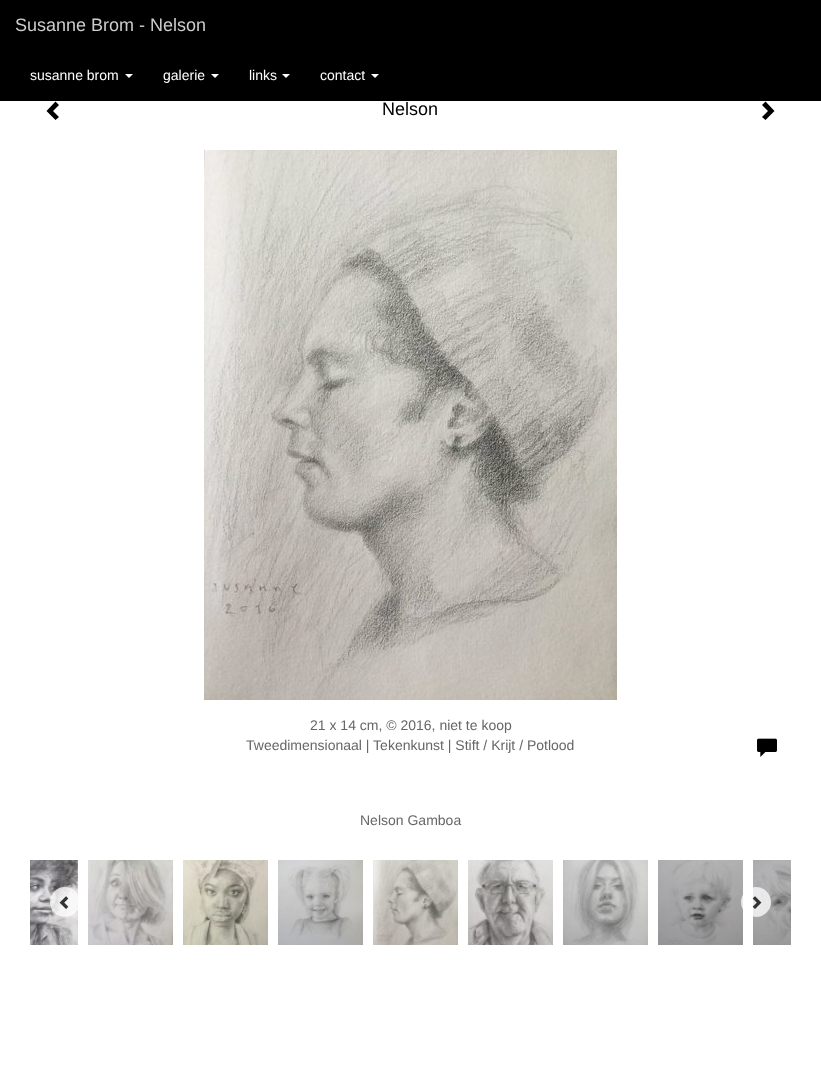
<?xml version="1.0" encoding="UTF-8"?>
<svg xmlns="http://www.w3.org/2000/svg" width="821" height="1070">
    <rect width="100%" height="100%" fill="#FFFFFF"/>
    <rect x="0" y="0" width="821" height="101" fill="#000000"/>
    <text x="15" y="31" font-family="Liberation Sans" font-size="18" fill="#CCCCCC">Susanne Brom - Nelson</text>
    <text x="30" y="80" font-family="Liberation Sans" font-size="14" fill="#FFFFFF">susanne brom</text>
    <path d="M 125 74 H 133 L 129 78 Z" fill="#FFFFFF"/>
    <text x="163" y="80" font-family="Liberation Sans" font-size="14" fill="#FFFFFF">galerie</text>
    <path d="M 211 74 H 219 L 215 78 Z" fill="#FFFFFF"/>
    <text x="249" y="80" font-family="Liberation Sans" font-size="14" fill="#FFFFFF">links</text>
    <path d="M 282 74 H 290 L 286 78 Z" fill="#FFFFFF"/>
    <text x="320" y="80" font-family="Liberation Sans" font-size="14" fill="#FFFFFF">contact</text>
    <path d="M 371 74 H 379 L 375 78 Z" fill="#FFFFFF"/>
    <path d="M 59 105 L 53 111 L 59 117 L 55.5 120 L 46.5 111 L 55.5 101.5 Z" fill="#000000"/>
    <text x="382" y="115" font-family="Liberation Sans" font-size="18" fill="#000000">Nelson</text>
    <path d="M 774.5 111 L 765.5 120 L 762 117 L 768 111 L 762 105 L 765.5 101.5 Z" fill="#000000"/>
    <image x="204" y="150" width="413" height="550" href="img_01.png"/>
    <text x="310" y="730" font-family="Liberation Sans" font-size="14" fill="#666666">21 x 14 cm, © 2016, niet te koop</text>
    <text x="246" y="750" font-family="Liberation Sans" font-size="14" fill="#666666">Tweedimensionaal | Tekenkunst | Stift / Krijt / Potlood</text>
    <image x="757" y="738" width="20" height="19" href="img_02.png"/>
    <text x="360" y="825" font-family="Liberation Sans" font-size="14" fill="#666666">Nelson Gamboa</text>
    <image x="30" y="860" width="48" height="85" href="img_03.png"/>
    <image x="88" y="860" width="85" height="85" href="img_04.png"/>
    <image x="183" y="860" width="85" height="85" href="img_05.png"/>
    <image x="278" y="860" width="85" height="85" href="img_06.png"/>
    <image x="373" y="860" width="85" height="85" href="img_07.png"/>
    <image x="468" y="860" width="85" height="85" href="img_08.png"/>
    <image x="563" y="860" width="85" height="85" href="img_09.png"/>
    <image x="658" y="860" width="85" height="85" href="img_10.png"/>
    <image x="753" y="860" width="38" height="85" href="img_11.png"/>
    <circle cx="65" cy="902" r="15" fill="#FFFFFF" fill-opacity="0.75"/>
    <image x="59" y="896" width="10" height="13" href="img_12.png"/>
    <circle cx="756" cy="902" r="15" fill="#FFFFFF" fill-opacity="0.75"/>
    <image x="752" y="896" width="10" height="13" href="img_13.png"/>
</svg>
